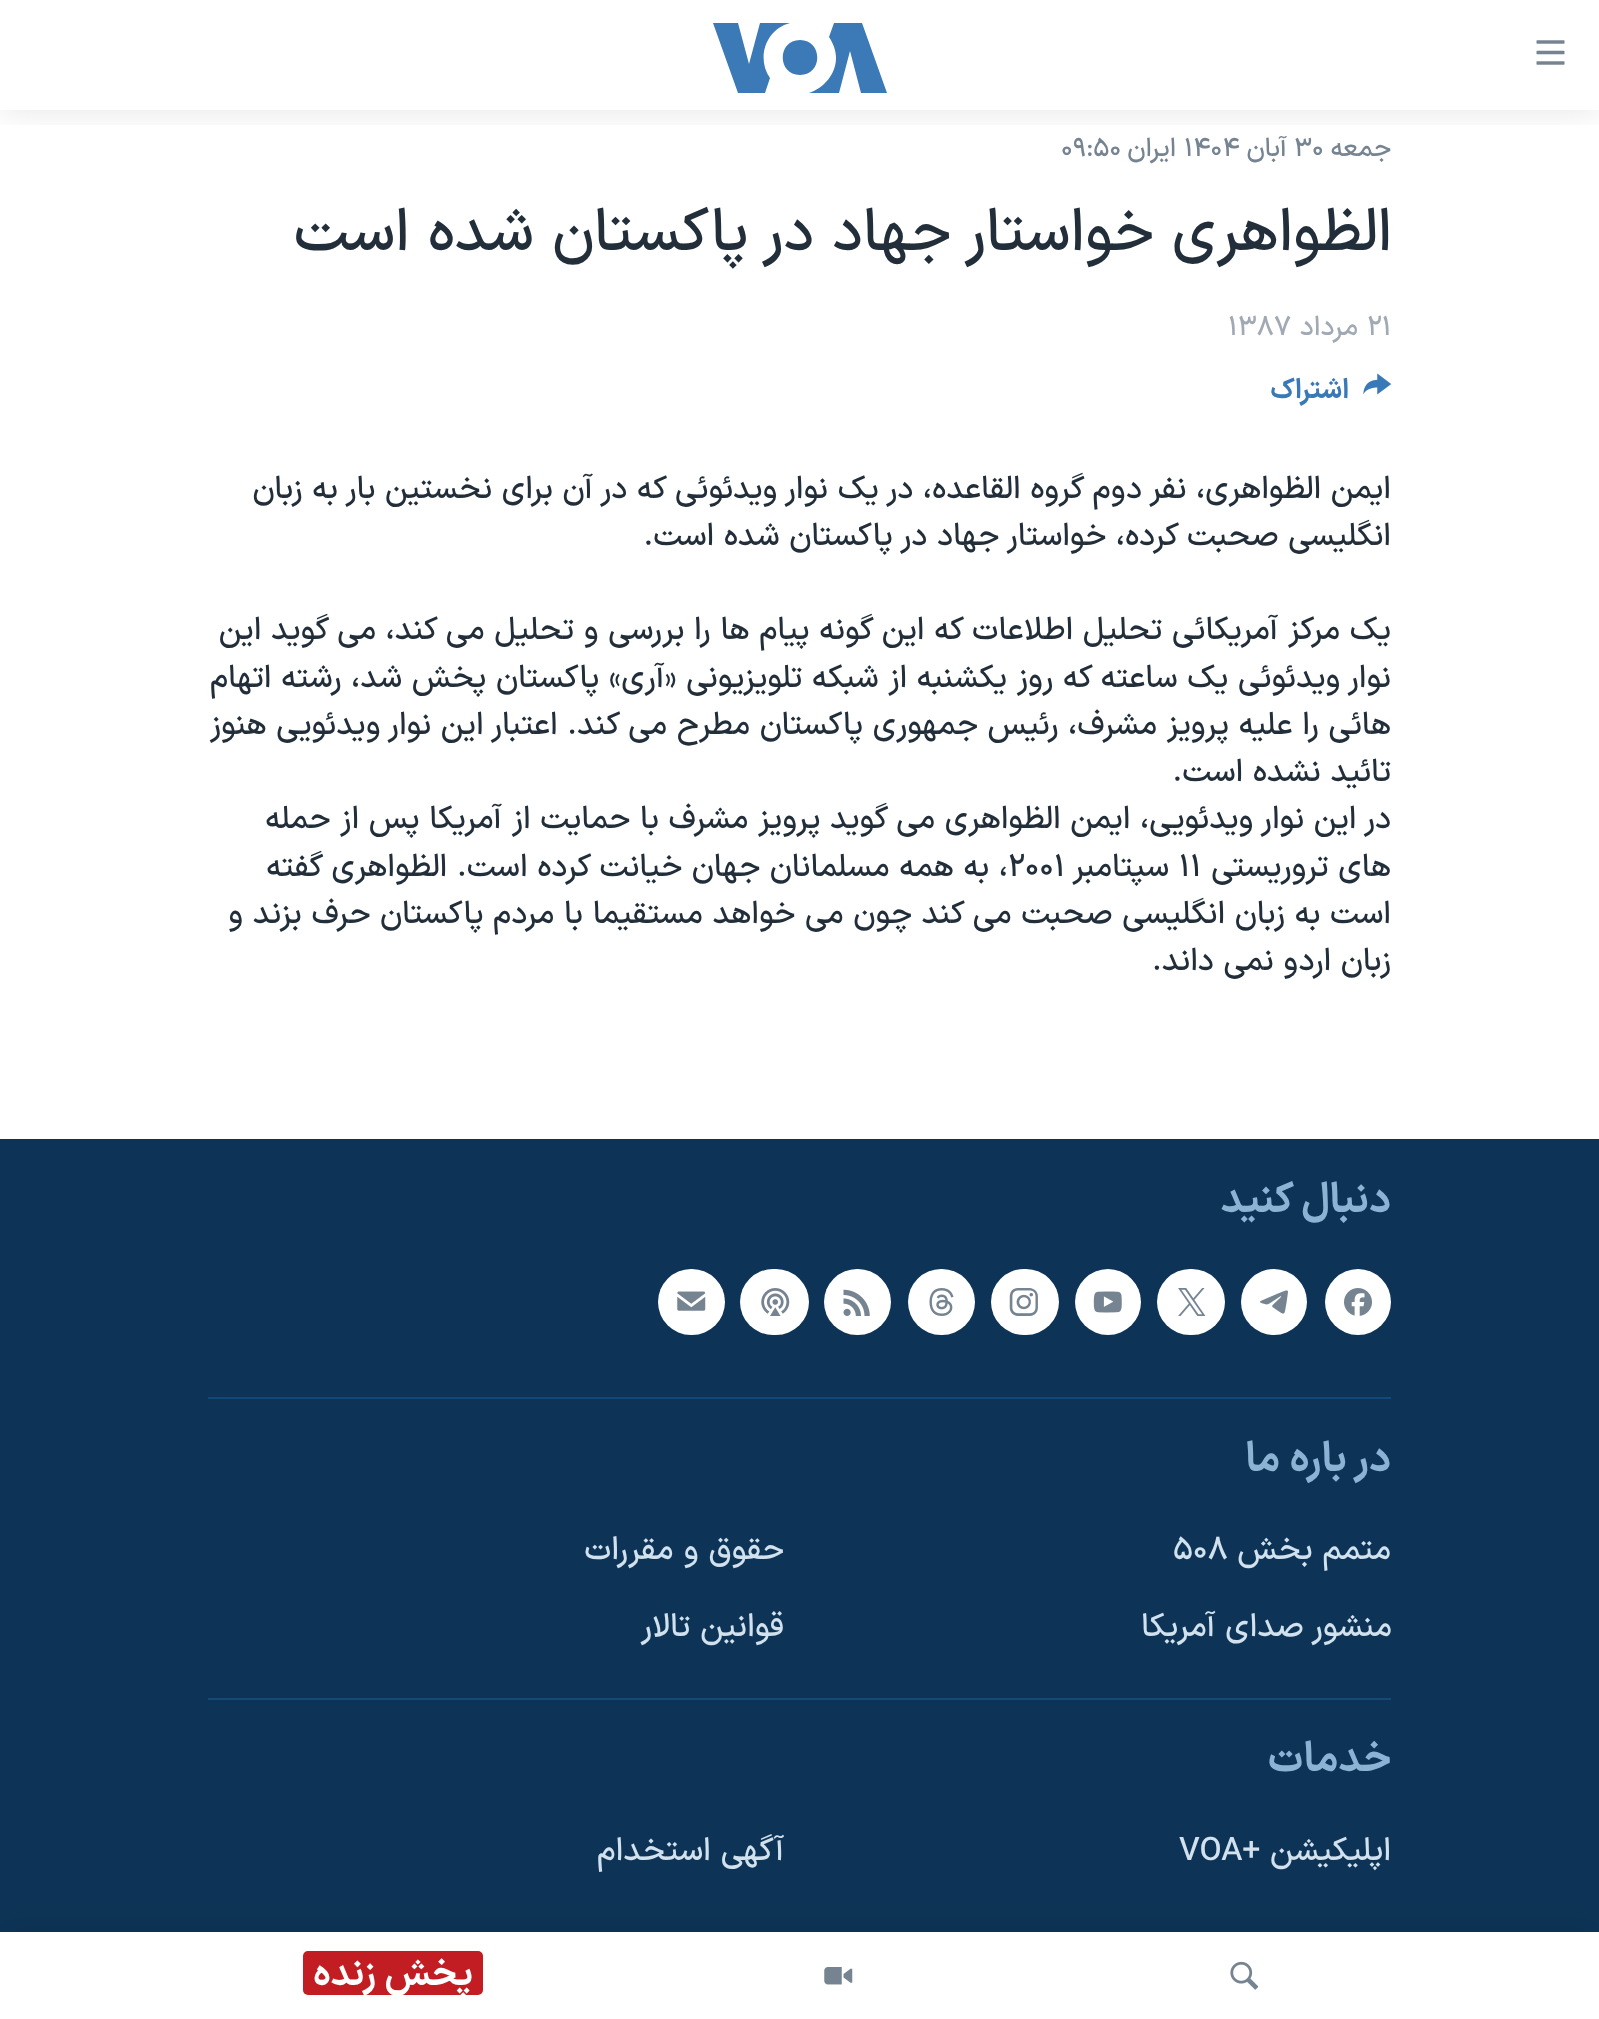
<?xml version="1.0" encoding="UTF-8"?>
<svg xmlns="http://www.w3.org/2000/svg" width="1599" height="2019">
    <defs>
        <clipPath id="clip1"><rect x="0" y="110" width="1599" height="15"/></clipPath>
        <filter id="blur1" x="-50%" y="-200%" width="200%" height="500%"><feGaussianBlur stdDeviation="17.5"/></filter>
    </defs>
    <rect width="100%" height="100%" fill="#FFFFFF"/>
    <text x="1391" y="156" font-family="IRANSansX" font-size="26" font-weight="500" direction="rtl" fill="#768492">جمعه</text>
    <text x="1294" y="156" font-family="IRANSansX" font-size="26" font-weight="500" fill="#768492">۳۰</text>
    <text x="1287" y="156" font-family="IRANSansX" font-size="26" font-weight="500" direction="rtl" fill="#768492">آبان</text>
    <text x="1184" y="156" font-family="IRANSansX" font-size="26" font-weight="500" fill="#768492">۱۴۰۴</text>
    <text x="1176" y="156" font-family="IRANSansX" font-size="26" font-weight="500" direction="rtl" fill="#768492">ایران</text>
    <text x="1061" y="156" font-family="IRANSansX" font-size="26" font-weight="500" fill="#768492">۰۹:۵۰</text>
    <text x="1392" y="250" font-family="IRANSansX" font-size="59.8" font-weight="500" direction="rtl" fill="#222F3A">الظواهری خواستار جهاد در پاکستان شده است</text>
    <text x="1367" y="335" font-family="IRANSansX" font-size="27.5" font-weight="500" fill="#A1AAB4">۲۱</text>
    <text x="1358" y="335" font-family="IRANSansX" font-size="27.5" font-weight="500" direction="rtl" fill="#A1AAB4">مرداد</text>
    <text x="1228" y="335" font-family="IRANSansX" font-size="27.5" font-weight="500" fill="#A1AAB4">۱۳۸۷</text>
    <image x="1363" y="373" width="29" height="22" href="img_01.png"/>
    <text x="1349" y="398" font-family="IRANSansX" font-size="27.5" font-weight="700" direction="rtl" fill="#3A79B7">اشتراک</text>
    <text font-family="IRANSansX" font-size="31.5" font-weight="500" direction="rtl" fill="#222F3A">
        <tspan x="1391" y="498">ایمن الظواهری، نفر دوم گروه القاعده، در یک نوار ویدئوئی که در آن برای نخستین بار به زبان</tspan>
        <tspan x="1391" y="545">انگلیسی صحبت کرده، خواستار جهاد در پاکستان شده است.</tspan>
    </text>
    <text font-family="IRANSansX" font-size="31.5" font-weight="500" direction="rtl" fill="#222F3A">
        <tspan x="1391" y="639">یک مرکز آمریکائی تحلیل اطلاعات که این گونه پیام ها را بررسی و تحلیل می کند، می گوید این</tspan>
        <tspan x="1391" y="687">نوار ویدئوئی یک ساعته که روز یکشنبه از شبکه تلویزیونی «آری» پاکستان پخش شد، رشته اتهام</tspan>
        <tspan x="1391" y="734">هائی را علیه پرویز مشرف، رئیس جمهوری پاکستان مطرح می کند. اعتبار این نوار ویدئويی هنوز</tspan>
        <tspan x="1391" y="781">تائید نشده است.</tspan>
        <tspan x="1391" y="828">در این نوار ویدئويی، ایمن الظواهری می گوید پرویز مشرف با حمایت از آمریکا پس از حمله</tspan>
        <tspan x="1391" y="876">های تروریستی</tspan>
    </text>
    <text x="1179" y="876" font-family="IRANSansX" font-size="31.5" font-weight="500" fill="#222F3A">۱۱</text>
    <text x="1169" y="876" font-family="IRANSansX" font-size="31.5" font-weight="500" direction="rtl" fill="#222F3A">سپتامبر</text>
    <text x="1008" y="876" font-family="IRANSansX" font-size="31.5" font-weight="500" fill="#222F3A">۲۰۰۱</text>
    <text x="1008" y="876" font-family="IRANSansX" font-size="31.5" font-weight="500" direction="rtl" fill="#222F3A">، به همه مسلمانان جهان خیانت کرده است. الظواهری گفته</text>
    <text font-family="IRANSansX" font-size="31.5" font-weight="500" direction="rtl" fill="#222F3A">
        <tspan x="1391" y="923">است به زبان انگلیسی صحبت می کند چون می خواهد مستقیما با مردم پاکستان حرف بزند و</tspan>
        <tspan x="1391" y="970">زبان اردو نمی داند.</tspan>
    </text>
    <rect x="0" y="1139" width="1599" height="793" fill="#0D3456"/>
    <text x="1391" y="1212" font-family="IRANSansX" font-size="41.5" font-weight="700" direction="rtl" fill="#8DB3D4">دنبال کنید</text>
    <circle cx="1358" cy="1302" r="33" fill="#FFFFFF"/>
    <image x="1344" y="1288" width="28" height="28" href="img_02.png"/>
    <circle cx="1274" cy="1302" r="33" fill="#FFFFFF"/>
    <image x="1260" y="1290" width="28" height="24" href="img_03.png"/>
    <rect x="1157" y="1269" width="68" height="66" rx="33" fill="#FFFFFF"/>
    <image x="1178" y="1288" width="28" height="28" href="img_04.png"/>
    <circle cx="1108" cy="1302" r="33" fill="#FFFFFF"/>
    <image x="1093" y="1291" width="29" height="22" href="img_05.png"/>
    <rect x="991" y="1269" width="68" height="66" rx="33" fill="#FFFFFF"/>
    <image x="1009" y="1288" width="29" height="28" href="img_06.png"/>
    <rect x="908" y="1269" width="67" height="66" rx="33" fill="#FFFFFF"/>
    <image x="929" y="1288" width="25" height="28" href="img_07.png"/>
    <rect x="824" y="1269" width="67" height="66" rx="33" fill="#FFFFFF"/>
    <image x="843" y="1289" width="27" height="27" href="img_08.png"/>
    <rect x="740" y="1269" width="69" height="66" rx="33" fill="#FFFFFF"/>
    <image x="761" y="1288" width="29" height="28" href="img_09.png"/>
    <rect x="658" y="1269" width="67" height="66" rx="33" fill="#FFFFFF"/>
    <image x="677" y="1291" width="29" height="20" href="img_10.png"/>
    <rect x="208" y="1397" width="1183" height="2" fill="#134976"/>
    <text x="1391" y="1471" font-family="IRANSansX" font-size="41.5" font-weight="700" direction="rtl" fill="#8DB3D4">در باره ما</text>
    <text x="1391" y="1559" font-family="IRANSansX" font-size="32.25" font-weight="500" direction="rtl" fill="#D1E1EE">متمم بخش</text>
    <text x="1173" y="1559" font-family="IRANSansX" font-size="32.25" font-weight="500" fill="#D1E1EE">۵۰۸</text>
    <text x="784" y="1559" font-family="IRANSansX" font-size="32.25" font-weight="500" direction="rtl" fill="#D1E1EE">حقوق و مقررات</text>
    <text x="1392" y="1636" font-family="IRANSansX" font-size="32.25" font-weight="500" direction="rtl" fill="#D1E1EE">منشور صدای آمریکا</text>
    <text x="784" y="1636" font-family="IRANSansX" font-size="32.25" font-weight="500" direction="rtl" fill="#D1E1EE">قوانین تالار</text>
    <rect x="208" y="1698" width="1183" height="2" fill="#134976"/>
    <text x="1391" y="1771" font-family="IRANSansX" font-size="41.5" font-weight="700" direction="rtl" fill="#8DB3D4">خدمات</text>
    <text x="1391" y="1860" font-family="IRANSansX" font-size="32.25" font-weight="500" direction="rtl" fill="#D1E1EE">اپلیکیشن +</text>
    <text x="1179" y="1860" font-family="IRANSansX" font-size="32.25" font-weight="500" fill="#D1E1EE">VOA</text>
    <text x="784" y="1860" font-family="IRANSansX" font-size="32.25" font-weight="500" direction="rtl" fill="#D1E1EE">آگهی استخدام</text>
    <g clip-path="url(#clip1)">
        <rect x="0" y="0" width="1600" height="110" fill="#000000" fill-opacity="0.1" filter="url(#blur1)"/>
    </g>
    <image x="1536" y="40" width="29" height="25" href="img_11.png"/>
    <path d="M 770 78 L 765 93 H 738 L 713 23 H 738 L 749 64 L 760 23 H 790 C 766 29 756 58 770 78 Z M 800 40 C 777 40 777 75 800 75 C 823 75 823 40 800 40 Z M 836 58 C 836 74 824 88 809 93 H 839 L 850 51 L 861 93 H 887 L 862 23 H 834 L 829 37 C 833 43 836 50 836 58 Z" fill="#3B79B7"/>
    <rect x="0" y="1932" width="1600" height="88" fill="#000000" fill-opacity="0.1" filter="url(#blur1)"/>
    <rect x="0" y="1932" width="1599" height="87" fill="#FFFFFF"/>
    <image x="1230" y="1961" width="29" height="29" href="img_12.png"/>
    <image x="824" y="1967" width="29" height="18" href="img_13.png"/>
    <rect x="303" y="1951" width="180" height="44" rx="5" fill="#C11D22"/>
    <text x="473" y="1985" font-family="IRANSansX" font-size="36.75" font-weight="700" direction="rtl" fill="#FFFFFF">پخش زنده</text>
</svg>
